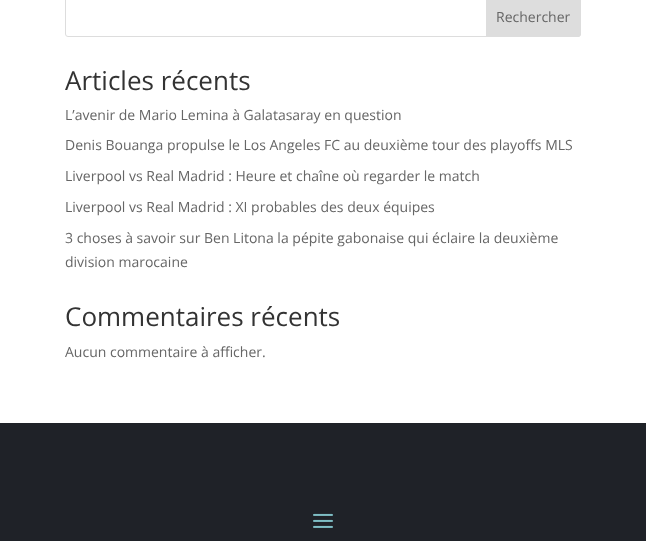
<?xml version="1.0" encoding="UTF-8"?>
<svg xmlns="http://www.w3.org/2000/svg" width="646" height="541">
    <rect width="100%" height="100%" fill="#FFFFFF"/>
    <rect x="65.5" y="-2.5" width="515" height="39" rx="2.5" fill="none" stroke="#DDDDDD"/>
    <path d="M 486.5 -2.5 H 578 C 579.5 -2.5 580.5 -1.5 580.5 0 V 34 C 580.5 35.5 579.5 36.5 578 36.5 H 486.5 Z" fill="#DDDDDD" stroke="#DDDDDD"/>
    <text x="496" y="22" font-family="Open Sans" font-size="14" fill="#666666">Rechercher</text>
    <text x="65" y="90" font-family="Open Sans" font-size="26" fill="#333333">Articles récents</text>
    <text x="65" y="120" font-family="Open Sans" font-size="14" fill="#666666">L’avenir de Mario Lemina à Galatasaray en question</text>
    <text x="65" y="150" font-family="Open Sans" font-size="14" fill="#666666">Denis Bouanga propulse le Los Angeles FC au deuxième tour des playoffs MLS</text>
    <text x="65" y="181" font-family="Open Sans" font-size="14" fill="#666666">Liverpool vs Real Madrid : Heure et chaîne où regarder le match</text>
    <text x="65" y="212" font-family="Open Sans" font-size="14" fill="#666666">Liverpool vs Real Madrid : XI probables des deux équipes</text>
    <text font-family="Open Sans" font-size="14" fill="#666666">
        <tspan x="65" y="243">3 choses à savoir sur Ben Litona la pépite gabonaise qui éclaire la deuxième</tspan>
        <tspan x="65" y="267">division marocaine</tspan>
    </text>
    <text x="65" y="326" font-family="Open Sans" font-size="26" fill="#333333">Commentaires récents</text>
    <text x="65" y="357" font-family="Open Sans" font-size="14" fill="#666666">Aucun commentaire à afficher.</text>
    <rect x="0" y="423" width="646" height="118" fill="#1F2228"/>
    <image x="313" y="513" width="20" height="15" href="img_01.png"/>
</svg>
